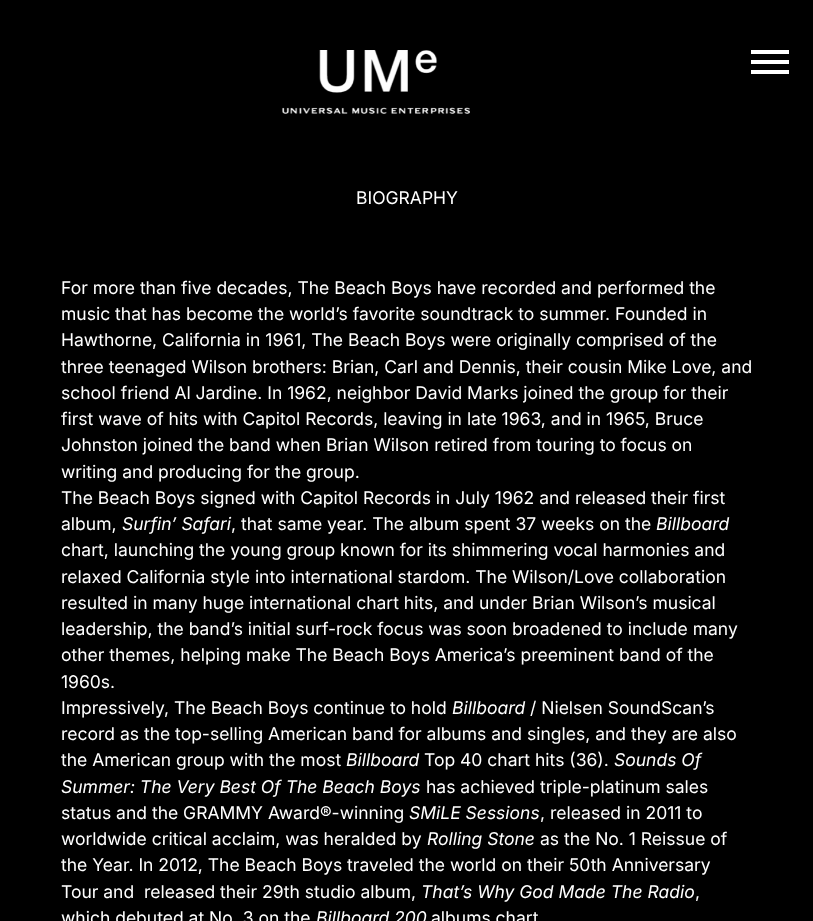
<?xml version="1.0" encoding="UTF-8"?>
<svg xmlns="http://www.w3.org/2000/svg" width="813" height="921">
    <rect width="100%" height="100%" fill="#000000"/>
    <image x="282" y="50" width="188" height="64" href="img_01.png"/>
    <rect x="751" y="50" width="38" height="4" fill="#FFFFFF"/>
    <rect x="751" y="60" width="38" height="4" fill="#FFFFFF"/>
    <rect x="751" y="70" width="38" height="4" fill="#FFFFFF"/>
    <text x="356" y="204" font-family="Inter" font-size="17.5" fill="#FFFFFF">BIOGRAPHY</text>
    <text font-family="Inter" font-size="17.5" fill="#FFFFFF">
        <tspan x="61" y="294">For more than five decades, The Beach Boys have recorded and performed the</tspan>
        <tspan x="61" y="320">music that has become the world’s favorite soundtrack to summer. Founded in</tspan>
        <tspan x="61" y="346">Hawthorne, California in 1961, The Beach Boys were originally comprised of the</tspan>
        <tspan x="61" y="373">three teenaged Wilson brothers: Brian, Carl and Dennis, their cousin Mike Love, and</tspan>
        <tspan x="61" y="399">school friend Al Jardine. In 1962, neighbor David Marks joined the group for their</tspan>
        <tspan x="61" y="425">first wave of hits with Capitol Records, leaving in late 1963, and in 1965, Bruce</tspan>
        <tspan x="61" y="451">Johnston joined the band when Brian Wilson retired from touring to focus on</tspan>
        <tspan x="61" y="478">writing and producing for the group.</tspan>
        <tspan x="61" y="504">The Beach Boys signed with Capitol Records in July 1962 and released their first</tspan>
        <tspan x="61" y="530">album,</tspan>
    </text>
    <text x="122" y="530" font-family="Inter" font-size="17.5" font-style="italic" fill="#FFFFFF">Surfin’ Safari</text>
    <text x="231" y="530" font-family="Inter" font-size="17.5" fill="#FFFFFF">, that same year. The album spent 37 weeks on the</text>
    <text x="656" y="530" font-family="Inter" font-size="17.5" font-style="italic" fill="#FFFFFF">Billboard</text>
    <text font-family="Inter" font-size="17.5" fill="#FFFFFF">
        <tspan x="61" y="556">chart, launching the young group known for its shimmering vocal harmonies and</tspan>
        <tspan x="61" y="583">relaxed California style into international stardom. The Wilson/Love collaboration</tspan>
        <tspan x="61" y="609">resulted in many huge international chart hits, and under Brian Wilson’s musical</tspan>
        <tspan x="61" y="635">leadership, the band’s initial surf-rock focus was soon broadened to include many</tspan>
        <tspan x="61" y="661">other themes, helping make The Beach Boys America’s preeminent band of the</tspan>
        <tspan x="61" y="688">1960s.</tspan>
        <tspan x="61" y="714">Impressively, The Beach Boys continue to hold</tspan>
    </text>
    <text x="452" y="714" font-family="Inter" font-size="17.5" font-style="italic" fill="#FFFFFF">Billboard</text>
    <text x="530" y="714" font-family="Inter" font-size="17.5" fill="#FFFFFF">/ Nielsen SoundScan’s</text>
    <text font-family="Inter" font-size="17.5" fill="#FFFFFF">
        <tspan x="61" y="740">record as the top-selling American band for albums and singles, and they are also</tspan>
        <tspan x="61" y="766">the American group with the most</tspan>
    </text>
    <text x="346" y="766" font-family="Inter" font-size="17.5" font-style="italic" fill="#FFFFFF">Billboard</text>
    <text x="424" y="766" font-family="Inter" font-size="17.5" fill="#FFFFFF">Top 40 chart hits (36).</text>
    <text x="614" y="766" font-family="Inter" font-size="17.5" font-style="italic" fill="#FFFFFF">Sounds Of</text>
    <text x="61" y="793" font-family="Inter" font-size="17.5" font-style="italic" fill="#FFFFFF">Summer: The Very Best Of The Beach Boys</text>
    <text x="426" y="793" font-family="Inter" font-size="17.5" fill="#FFFFFF">has achieved triple-platinum sales</text>
    <text x="61" y="819" font-family="Inter" font-size="17.5" fill="#FFFFFF">status and the GRAMMY Award®-winning</text>
    <text x="409" y="819" font-family="Inter" font-size="17.5" font-style="italic" fill="#FFFFFF">SMiLE Sessions</text>
    <text x="540" y="819" font-family="Inter" font-size="17.5" fill="#FFFFFF">, released in 2011 to</text>
    <text x="61" y="845" font-family="Inter" font-size="17.5" fill="#FFFFFF">worldwide critical acclaim, was heralded by</text>
    <text x="427" y="845" font-family="Inter" font-size="17.5" font-style="italic" fill="#FFFFFF">Rolling Stone</text>
    <text x="540" y="845" font-family="Inter" font-size="17.5" fill="#FFFFFF">as the No. 1 Reissue of</text>
    <text font-family="Inter" font-size="17.5" fill="#FFFFFF" xml:space="preserve"><tspan x="61" y="871">the Year. In 2012, The Beach Boys traveled the world on their 50th Anniversary</tspan><tspan x="61" y="898">Tour and  released their 29th studio album,</tspan></text>
    <text x="421" y="898" font-family="Inter" font-size="17.5" font-style="italic" fill="#FFFFFF">That’s Why God Made The Radio</text>
    <text x="695" y="898" font-family="Inter" font-size="17.5" fill="#FFFFFF">,</text>
    <text x="61" y="924" font-family="Inter" font-size="17.5" fill="#FFFFFF">which debuted at No. 3 on the</text>
    <text x="316" y="924" font-family="Inter" font-size="17.5" font-style="italic" fill="#FFFFFF">Billboard 200</text>
    <text x="431" y="924" font-family="Inter" font-size="17.5" fill="#FFFFFF">albums chart</text>
</svg>
